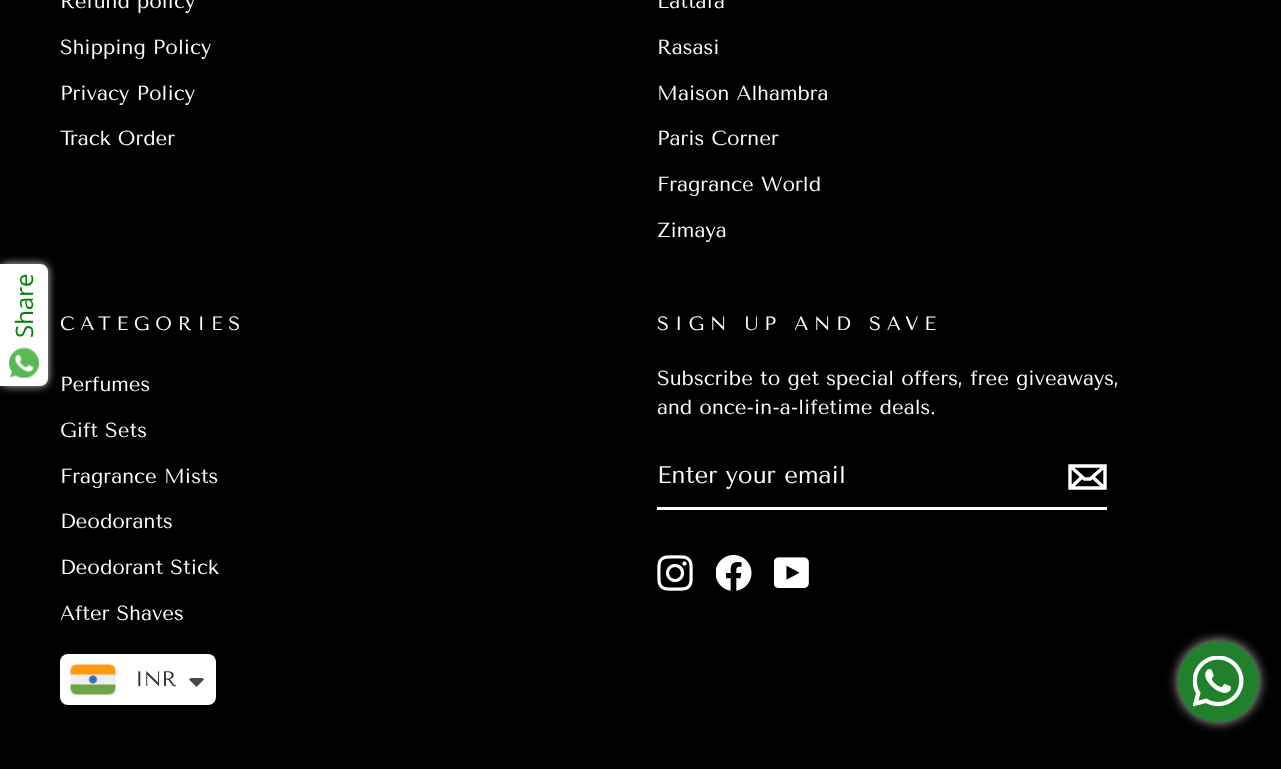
<?xml version="1.0" encoding="UTF-8"?>
<svg xmlns="http://www.w3.org/2000/svg" width="1281" height="769">
    <defs>
        <filter id="blur1" x="-50%" y="-200%" width="200%" height="500%"><feGaussianBlur stdDeviation="4"/></filter>
        <filter id="blur2" x="-50%" y="-200%" width="200%" height="500%"><feGaussianBlur stdDeviation="6"/></filter>
    </defs>
    <rect width="100%" height="100%" fill="#000000"/>
    <rect x="0" y="264" width="48" height="122" rx="8" fill="#D3D3D3" filter="url(#blur1)"/>
    <path d="M 0 264 H 40 C 44.5 264 48 267.5 48 272 V 378 C 48 382.5 44.5 386 40 386 H 0 Z" fill="#FFFFFF"/>
    <text x="33" y="338" transform="rotate(-90 33 338)" font-family="Open Sans" font-size="24" fill="#008000">Share</text>
    <image x="9" y="347" width="30" height="31" href="img_01.png"/>
    <text x="60" y="8" font-family="Tenor Sans" font-size="20.4" fill="#FFFFFF">Refund policy</text>
    <text x="60" y="54" font-family="Tenor Sans" font-size="20.4" fill="#FFFFFF">Shipping Policy</text>
    <text x="60" y="100" font-family="Tenor Sans" font-size="20.4" fill="#FFFFFF">Privacy Policy</text>
    <text x="60" y="145" font-family="Tenor Sans" font-size="20.4" fill="#FFFFFF">Track Order</text>
    <text x="657" y="8" font-family="Tenor Sans" font-size="20.4" fill="#FFFFFF">Lattafa</text>
    <text x="657" y="54" font-family="Tenor Sans" font-size="20.4" fill="#FFFFFF">Rasasi</text>
    <text x="657" y="100" font-family="Tenor Sans" font-size="20.4" fill="#FFFFFF">Maison Alhambra</text>
    <text x="657" y="145" font-family="Tenor Sans" font-size="20.4" fill="#FFFFFF">Paris Corner</text>
    <text x="657" y="191" font-family="Tenor Sans" font-size="20.4" fill="#FFFFFF">Fragrance World</text>
    <text x="657" y="237" font-family="Tenor Sans" font-size="20.4" fill="#FFFFFF">Zimaya</text>
    <text x="60" y="330" font-family="Tenor Sans" font-size="19.25" letter-spacing="5.75" fill="#FFFFFF">CATEGORIES</text>
    <text x="60" y="391" font-family="Tenor Sans" font-size="20.4" fill="#FFFFFF">Perfumes</text>
    <text x="60" y="437" font-family="Tenor Sans" font-size="20.4" fill="#FFFFFF">Gift Sets</text>
    <text x="60" y="483" font-family="Tenor Sans" font-size="20.4" fill="#FFFFFF">Fragrance Mists</text>
    <text x="60" y="528" font-family="Tenor Sans" font-size="20.4" fill="#FFFFFF">Deodorants</text>
    <text x="60" y="574" font-family="Tenor Sans" font-size="20.4" fill="#FFFFFF">Deodorant Stick</text>
    <text x="60" y="620" font-family="Tenor Sans" font-size="20.4" fill="#FFFFFF">After Shaves</text>
    <text x="657" y="330" font-family="Tenor Sans" font-size="19.25" letter-spacing="5.75" fill="#FFFFFF">SIGN UP AND SAVE</text>
    <text font-family="Tenor Sans" font-size="20.4" fill="#FFFFFF">
        <tspan x="657" y="385">Subscribe to get special offers, free giveaways,</tspan>
        <tspan x="657" y="414">and once-in-a-lifetime deals.</tspan>
    </text>
    <rect x="657" y="507" width="450" height="3" fill="#FFFFFF"/>
    <text x="657" y="483" font-family="Tenor Sans" font-size="24" fill="#FFFFFF">Enter your email</text>
    <path d="M 1105 488 H 1070 V 466 H 1105 Z M 1070 466 L 1084.5 479 H 1090 L 1105 466 M 1082 477 L 1070.5 488 M 1104.5 488 L 1092.5 477" fill="none" stroke="#FFFFFF" stroke-width="3.4"/>
    <image x="657" y="555" width="36" height="36" href="img_02.png"/>
    <image x="716" y="555" width="36" height="36" href="img_03.png"/>
    <image x="774" y="557" width="35" height="31" href="img_04.png"/>
    <rect x="60" y="654" width="156" height="51" rx="8" fill="#FFFFFF"/>
    <image x="70" y="664" width="46" height="31" href="img_05.png"/>
    <text x="135" y="686" font-family="Tenor Sans" font-size="21" fill="#333333">INR</text>
    <path d="M 192 678 C 191 678 189.5 678.5 189 679.5 L 196.5 687 L 204 679.5 C 203.5 678.5 202 678 201 678 Z" fill="#474942"/>
    <rect x="1178" y="641" width="81" height="81" rx="40.5" fill="#C2C2C2" filter="url(#blur2)"/>
    <circle cx="1218.5" cy="681.5" r="40.5" fill="#20802C"/>
    <image x="1193" y="656" width="51" height="51" href="img_06.png"/>
</svg>
